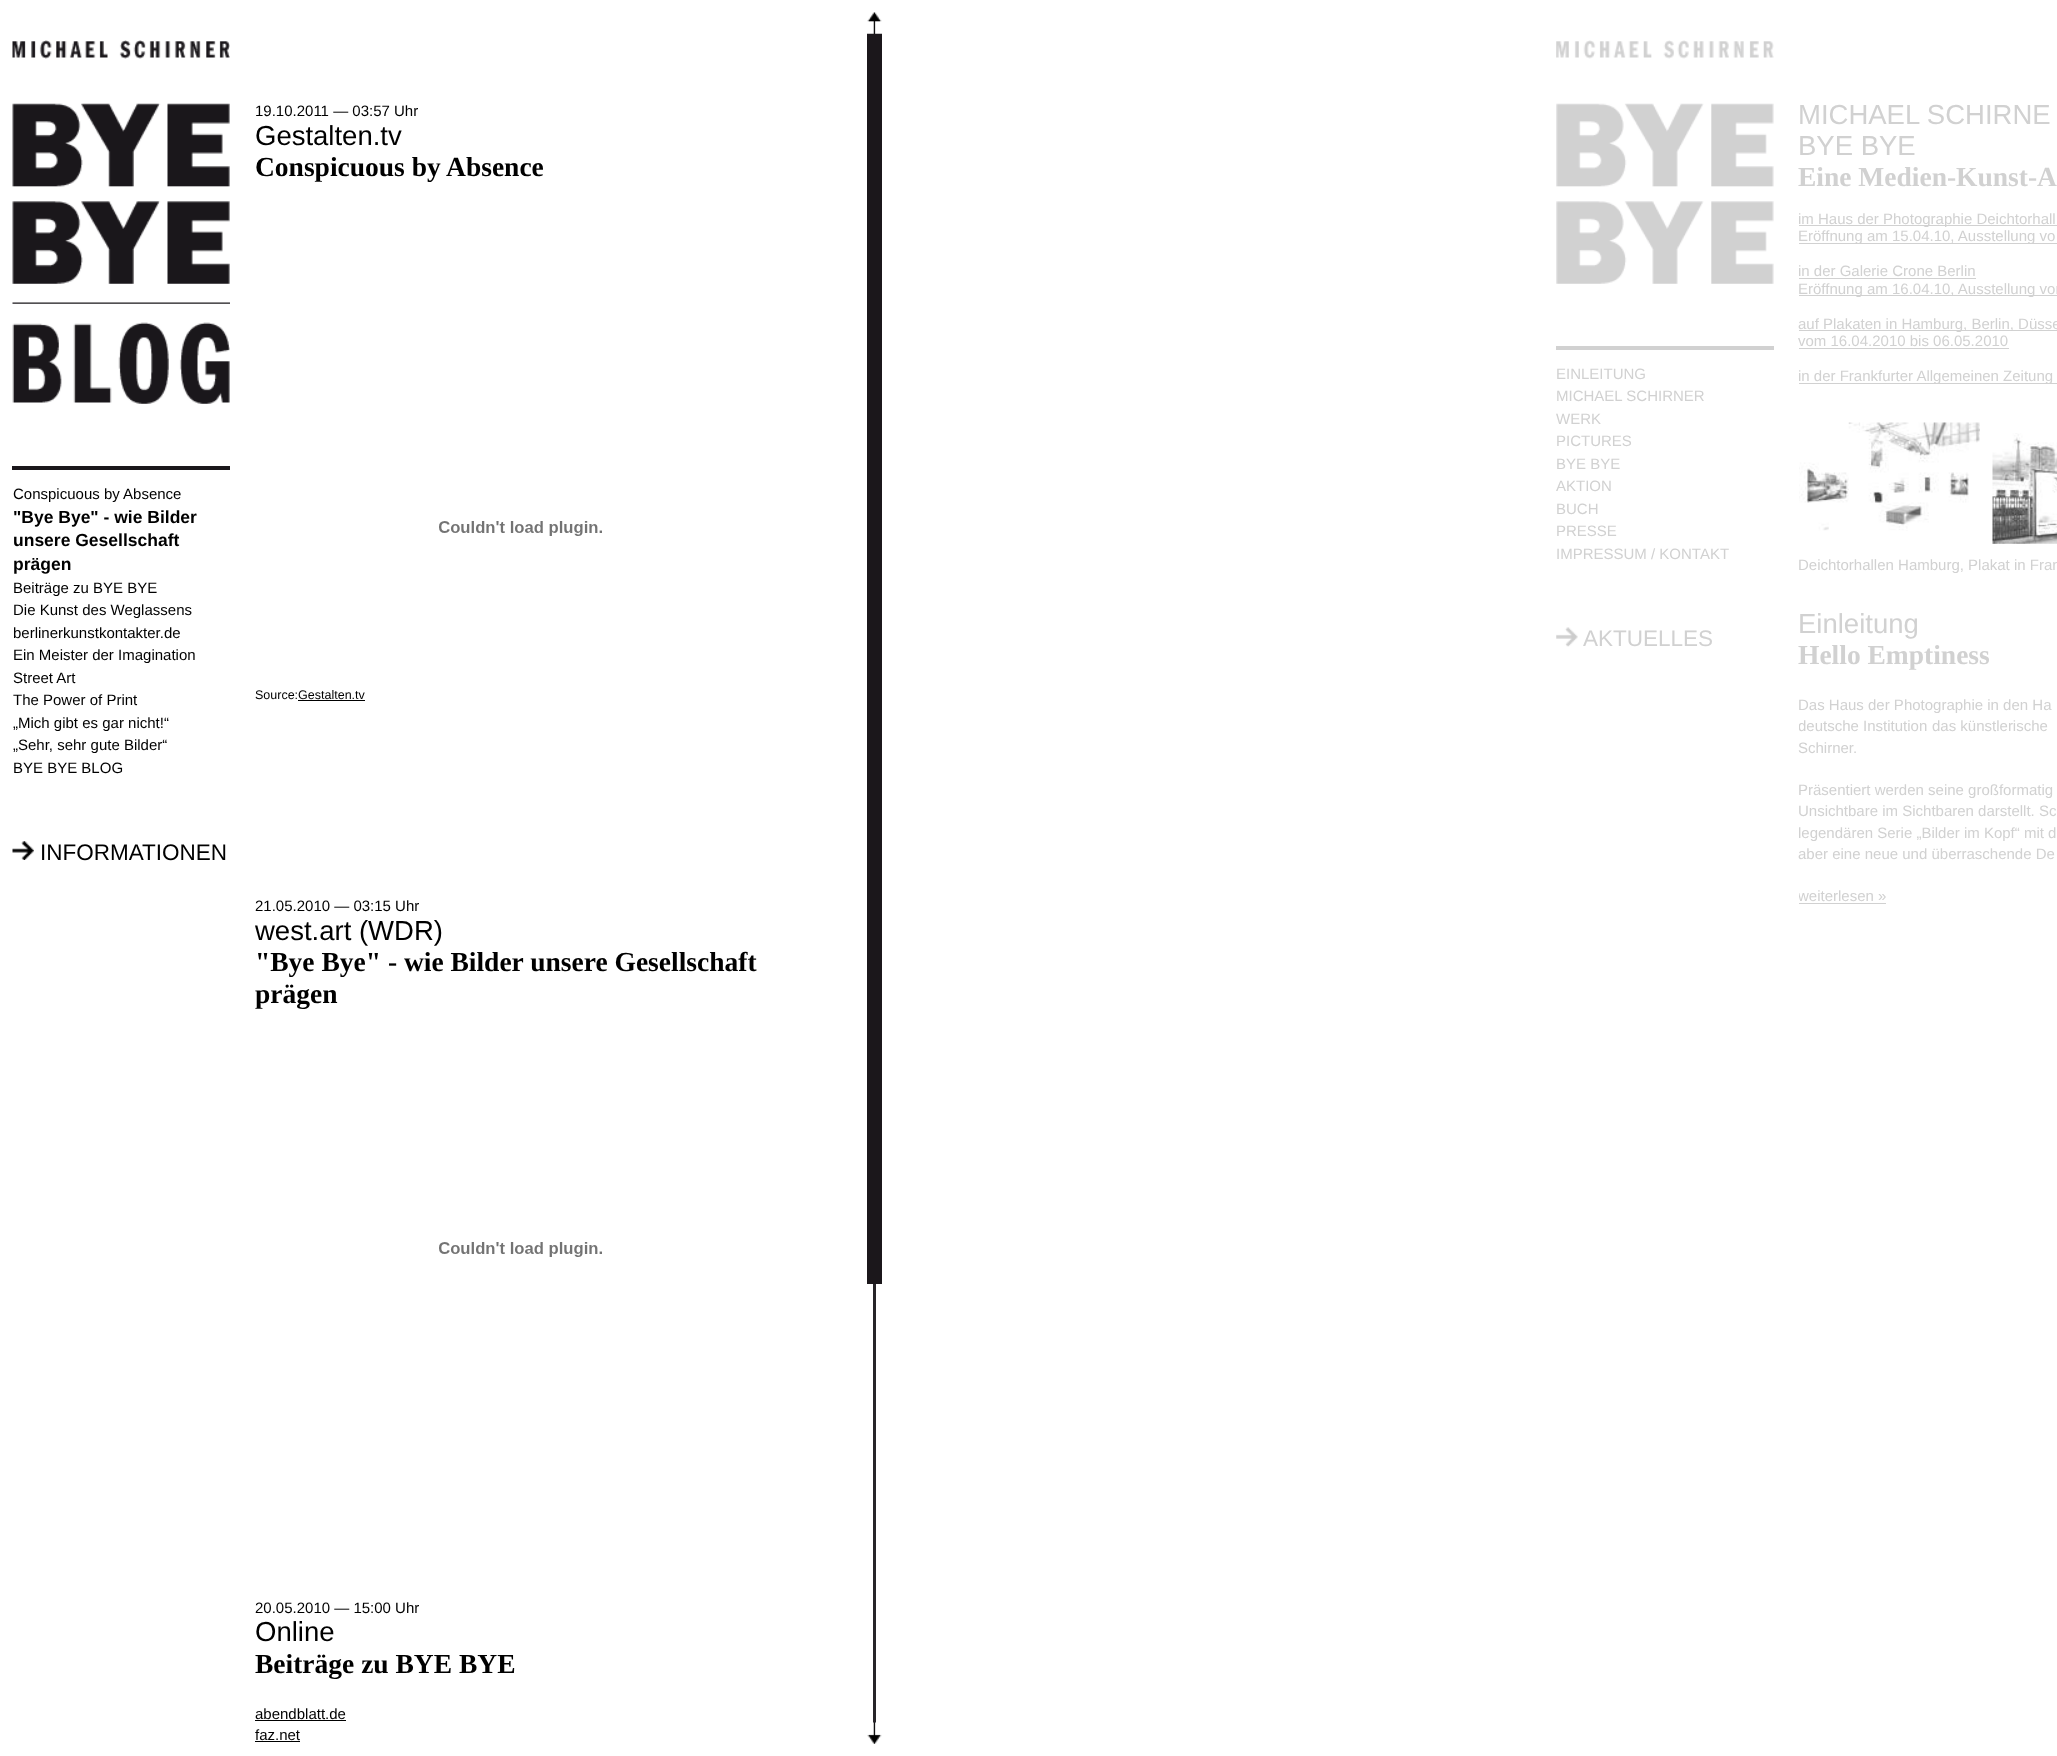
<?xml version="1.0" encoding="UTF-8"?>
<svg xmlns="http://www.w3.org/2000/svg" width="2057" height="1756">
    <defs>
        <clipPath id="clip1"><rect x="1799" y="0" width="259" height="1756"/></clipPath>
    </defs>
    <rect width="100%" height="100%" fill="#FFFFFF"/>
    <image x="12" y="40" width="218" height="244" href="img_01.png"/>
    <image x="12" y="302" width="218" height="2" href="img_02.png"/>
    <image x="12" y="322" width="218" height="82" href="img_03.png"/>
    <rect x="12" y="466" width="218" height="4" fill="#1A171B"/>
    <text x="13" y="499" font-family="Liberation Sans" font-size="15" fill="#000000">Conspicuous by Absence</text>
    <text font-family="Liberation Sans" font-size="17.5" font-weight="700" fill="#000000">
        <tspan x="13" y="523">"Bye Bye" - wie Bilder</tspan>
        <tspan x="13" y="546">unsere Gesellschaft</tspan>
        <tspan x="13" y="570">prägen</tspan>
    </text>
    <text font-family="Liberation Sans" font-size="15" fill="#000000">
        <tspan x="13" y="593">Beiträge zu BYE BYE</tspan>
        <tspan x="13" y="615">Die Kunst des Weglassens</tspan>
        <tspan x="13" y="638">berlinerkunstkontakter.de</tspan>
        <tspan x="13" y="660">Ein Meister der Imagination</tspan>
        <tspan x="13" y="683">Street Art</tspan>
        <tspan x="13" y="705">The Power of Print</tspan>
        <tspan x="13" y="728">„Mich gibt es gar nicht!“</tspan>
        <tspan x="13" y="750">„Sehr, sehr gute Bilder“</tspan>
        <tspan x="13" y="773">BYE BYE BLOG</tspan>
    </text>
    <image x="12" y="841" width="22" height="19" href="img_04.png"/>
    <text x="40" y="860" font-family="Liberation Sans" font-size="22.5" fill="#000000">INFORMATIONEN</text>
    <rect x="867" y="33" width="15" height="1251" fill="#1B171B"/>
    <image x="867" y="12" width="15" height="22" href="img_05.png"/>
    <text x="255" y="116" font-family="Liberation Sans" font-size="15" fill="#000000">19.10.2011 — 03:57 Uhr</text>
    <text x="255" y="145" font-family="Liberation Sans" font-size="27.5" fill="#000000">Gestalten.tv</text>
    <text x="255" y="176" font-family="Liberation Serif" font-size="27.5" font-weight="700" fill="#000000">Conspicuous by Absence</text>
    <image x="439" y="521" width="163" height="15" href="img_06.png"/>
    <text x="255" y="699" font-family="Liberation Sans" font-size="12.5" fill="#000000">Source:Gestalten.tv</text>
    <rect x="298" y="700" width="67" height="1" fill="#000000"/>
    <text x="255" y="911" font-family="Liberation Sans" font-size="15" fill="#000000">21.05.2010 — 03:15 Uhr</text>
    <text x="255" y="940" font-family="Liberation Sans" font-size="27.5" fill="#000000">west.art (WDR)</text>
    <text font-family="Liberation Serif" font-size="27.5" font-weight="700" fill="#000000">
        <tspan x="255" y="971">"Bye Bye" - wie Bilder unsere Gesellschaft</tspan>
        <tspan x="255" y="1003">prägen</tspan>
    </text>
    <image x="439" y="1242" width="163" height="15" href="img_06.png"/>
    <text x="255" y="1613" font-family="Liberation Sans" font-size="15" fill="#000000">20.05.2010 — 15:00 Uhr</text>
    <text x="255" y="1641" font-family="Liberation Sans" font-size="27.5" fill="#000000">Online</text>
    <text x="255" y="1673" font-family="Liberation Serif" font-size="27.5" font-weight="700" fill="#000000">Beiträge zu BYE BYE</text>
    <text x="255" y="1719" font-family="Liberation Sans" font-size="15" fill="#000000">abendblatt.de</text>
    <rect x="255" y="1720" width="91" height="1" fill="#000000"/>
    <text x="255" y="1740" font-family="Liberation Sans" font-size="15" fill="#000000">faz.net</text>
    <rect x="255" y="1741" width="45" height="1" fill="#000000"/>
    <rect x="873" y="1284" width="3" height="439" fill="#282529"/>
    <image x="867" y="1722" width="15" height="22" href="img_07.png"/>
    <image x="1556" y="40" width="218" height="244" href="img_08.png"/>
    <rect x="1556" y="346" width="218" height="4" fill="#D1D1D1"/>
    <text font-family="Liberation Sans" font-size="15" fill="#D1D1D1">
        <tspan x="1556" y="379">EINLEITUNG</tspan>
        <tspan x="1556" y="401">MICHAEL SCHIRNER</tspan>
        <tspan x="1556" y="424">WERK</tspan>
        <tspan x="1556" y="446">PICTURES</tspan>
        <tspan x="1556" y="469">BYE BYE</tspan>
        <tspan x="1556" y="491">AKTION</tspan>
        <tspan x="1556" y="514">BUCH</tspan>
        <tspan x="1556" y="536">PRESSE</tspan>
        <tspan x="1556" y="559">IMPRESSUM / KONTAKT</tspan>
    </text>
    <image x="1556" y="627" width="22" height="20" href="img_09.png"/>
    <text x="1583" y="646" font-family="Liberation Sans" font-size="22.5" fill="#D1D1D1">AKTUELLES</text>
    <text font-family="Liberation Sans" font-size="27.5" fill="#D1D1D1">
        <tspan x="1798" y="124">MICHAEL SCHIRNE</tspan>
        <tspan x="1798" y="155">BYE BYE</tspan>
    </text>
    <text x="1798" y="186" font-family="Liberation Serif" font-size="27.5" font-weight="700" fill="#D1D1D1">Eine Medien-Kunst-A</text>
    <rect x="1799" y="225" width="258" height="1" fill="#D1D1D1"/>
    <text x="1798" y="224" font-family="Liberation Sans" font-size="15" fill="#D1D1D1">im Haus der Photographie Deichtorhall</text>
    <rect x="1799" y="243" width="258" height="1" fill="#D1D1D1"/>
    <text x="1798" y="241" font-family="Liberation Sans" font-size="15" fill="#D1D1D1">Eröffnung am 15.04.10, Ausstellung vo</text>
    <text x="1798" y="276" font-family="Liberation Sans" font-size="15" fill="#D1D1D1">in der Galerie Crone Berlin</text>
    <rect x="1799" y="278" width="177" height="1" fill="#D1D1D1"/>
    <rect x="1799" y="295" width="258" height="1" fill="#D1D1D1"/>
    <text x="1798" y="294" font-family="Liberation Sans" font-size="15" fill="#D1D1D1">Eröffnung am 16.04.10, Ausstellung vom</text>
    <rect x="1799" y="330" width="258" height="1" fill="#D1D1D1"/>
    <text font-family="Liberation Sans" font-size="15" fill="#D1D1D1">
        <tspan x="1798" y="329">auf Plakaten in Hamburg, Berlin, Düsse</tspan>
        <tspan x="1798" y="346">vom 16.04.2010 bis 06.05.2010</tspan>
    </text>
    <rect x="1799" y="348" width="210" height="1" fill="#D1D1D1"/>
    <rect x="1799" y="383" width="258" height="1" fill="#D1D1D1"/>
    <text x="1798" y="381" font-family="Liberation Sans" font-size="15" fill="#D1D1D1">in der Frankfurter Allgemeinen Zeitung</text>
    <image x="1799" y="422" width="181" height="109" href="img_10.png"/>
    <image x="1992" y="433" width="65" height="111" href="img_11.png"/>
    <text x="1798" y="570" font-family="Liberation Sans" font-size="15" fill="#D1D1D1">Deichtorhallen Hamburg, Plakat in Fran</text>
    <text x="1798" y="633" font-family="Liberation Sans" font-size="27.5" fill="#D1D1D1">Einleitung</text>
    <text x="1798" y="664" font-family="Liberation Serif" font-size="27.5" font-weight="700" fill="#D1D1D1">Hello Emptiness</text>
    <text x="1798" y="710" font-family="Liberation Sans" font-size="15" fill="#D1D1D1">Das Haus der Photographie in den Ha</text>
    <g clip-path="url(#clip1)">
        <text x="1798" y="731" font-family="Liberation Sans" font-size="15" fill="#D1D1D1">deutsche Institution</text>
    </g>
    <text x="1932" y="731" font-family="Liberation Sans" font-size="15" fill="#D1D1D1">das künstlerische</text>
    <text x="1798" y="753" font-family="Liberation Sans" font-size="15" fill="#D1D1D1">Schirner.</text>
    <text font-family="Liberation Sans" font-size="15" fill="#D1D1D1">
        <tspan x="1798" y="795">Präsentiert werden seine großformatig</tspan>
        <tspan x="1798" y="816">Unsichtbare im Sichtbaren darstellt. Sc</tspan>
        <tspan x="1798" y="838">legendären Serie „Bilder im Kopf“ mit d</tspan>
        <tspan x="1798" y="859">aber eine neue und überraschende De</tspan>
    </text>
    <g clip-path="url(#clip1)">
        <text x="1798" y="901" font-family="Liberation Sans" font-size="15" fill="#D1D1D1">weiterlesen »</text>
    </g>
    <rect x="1799" y="903" width="87" height="1" fill="#D1D1D1"/>
</svg>
